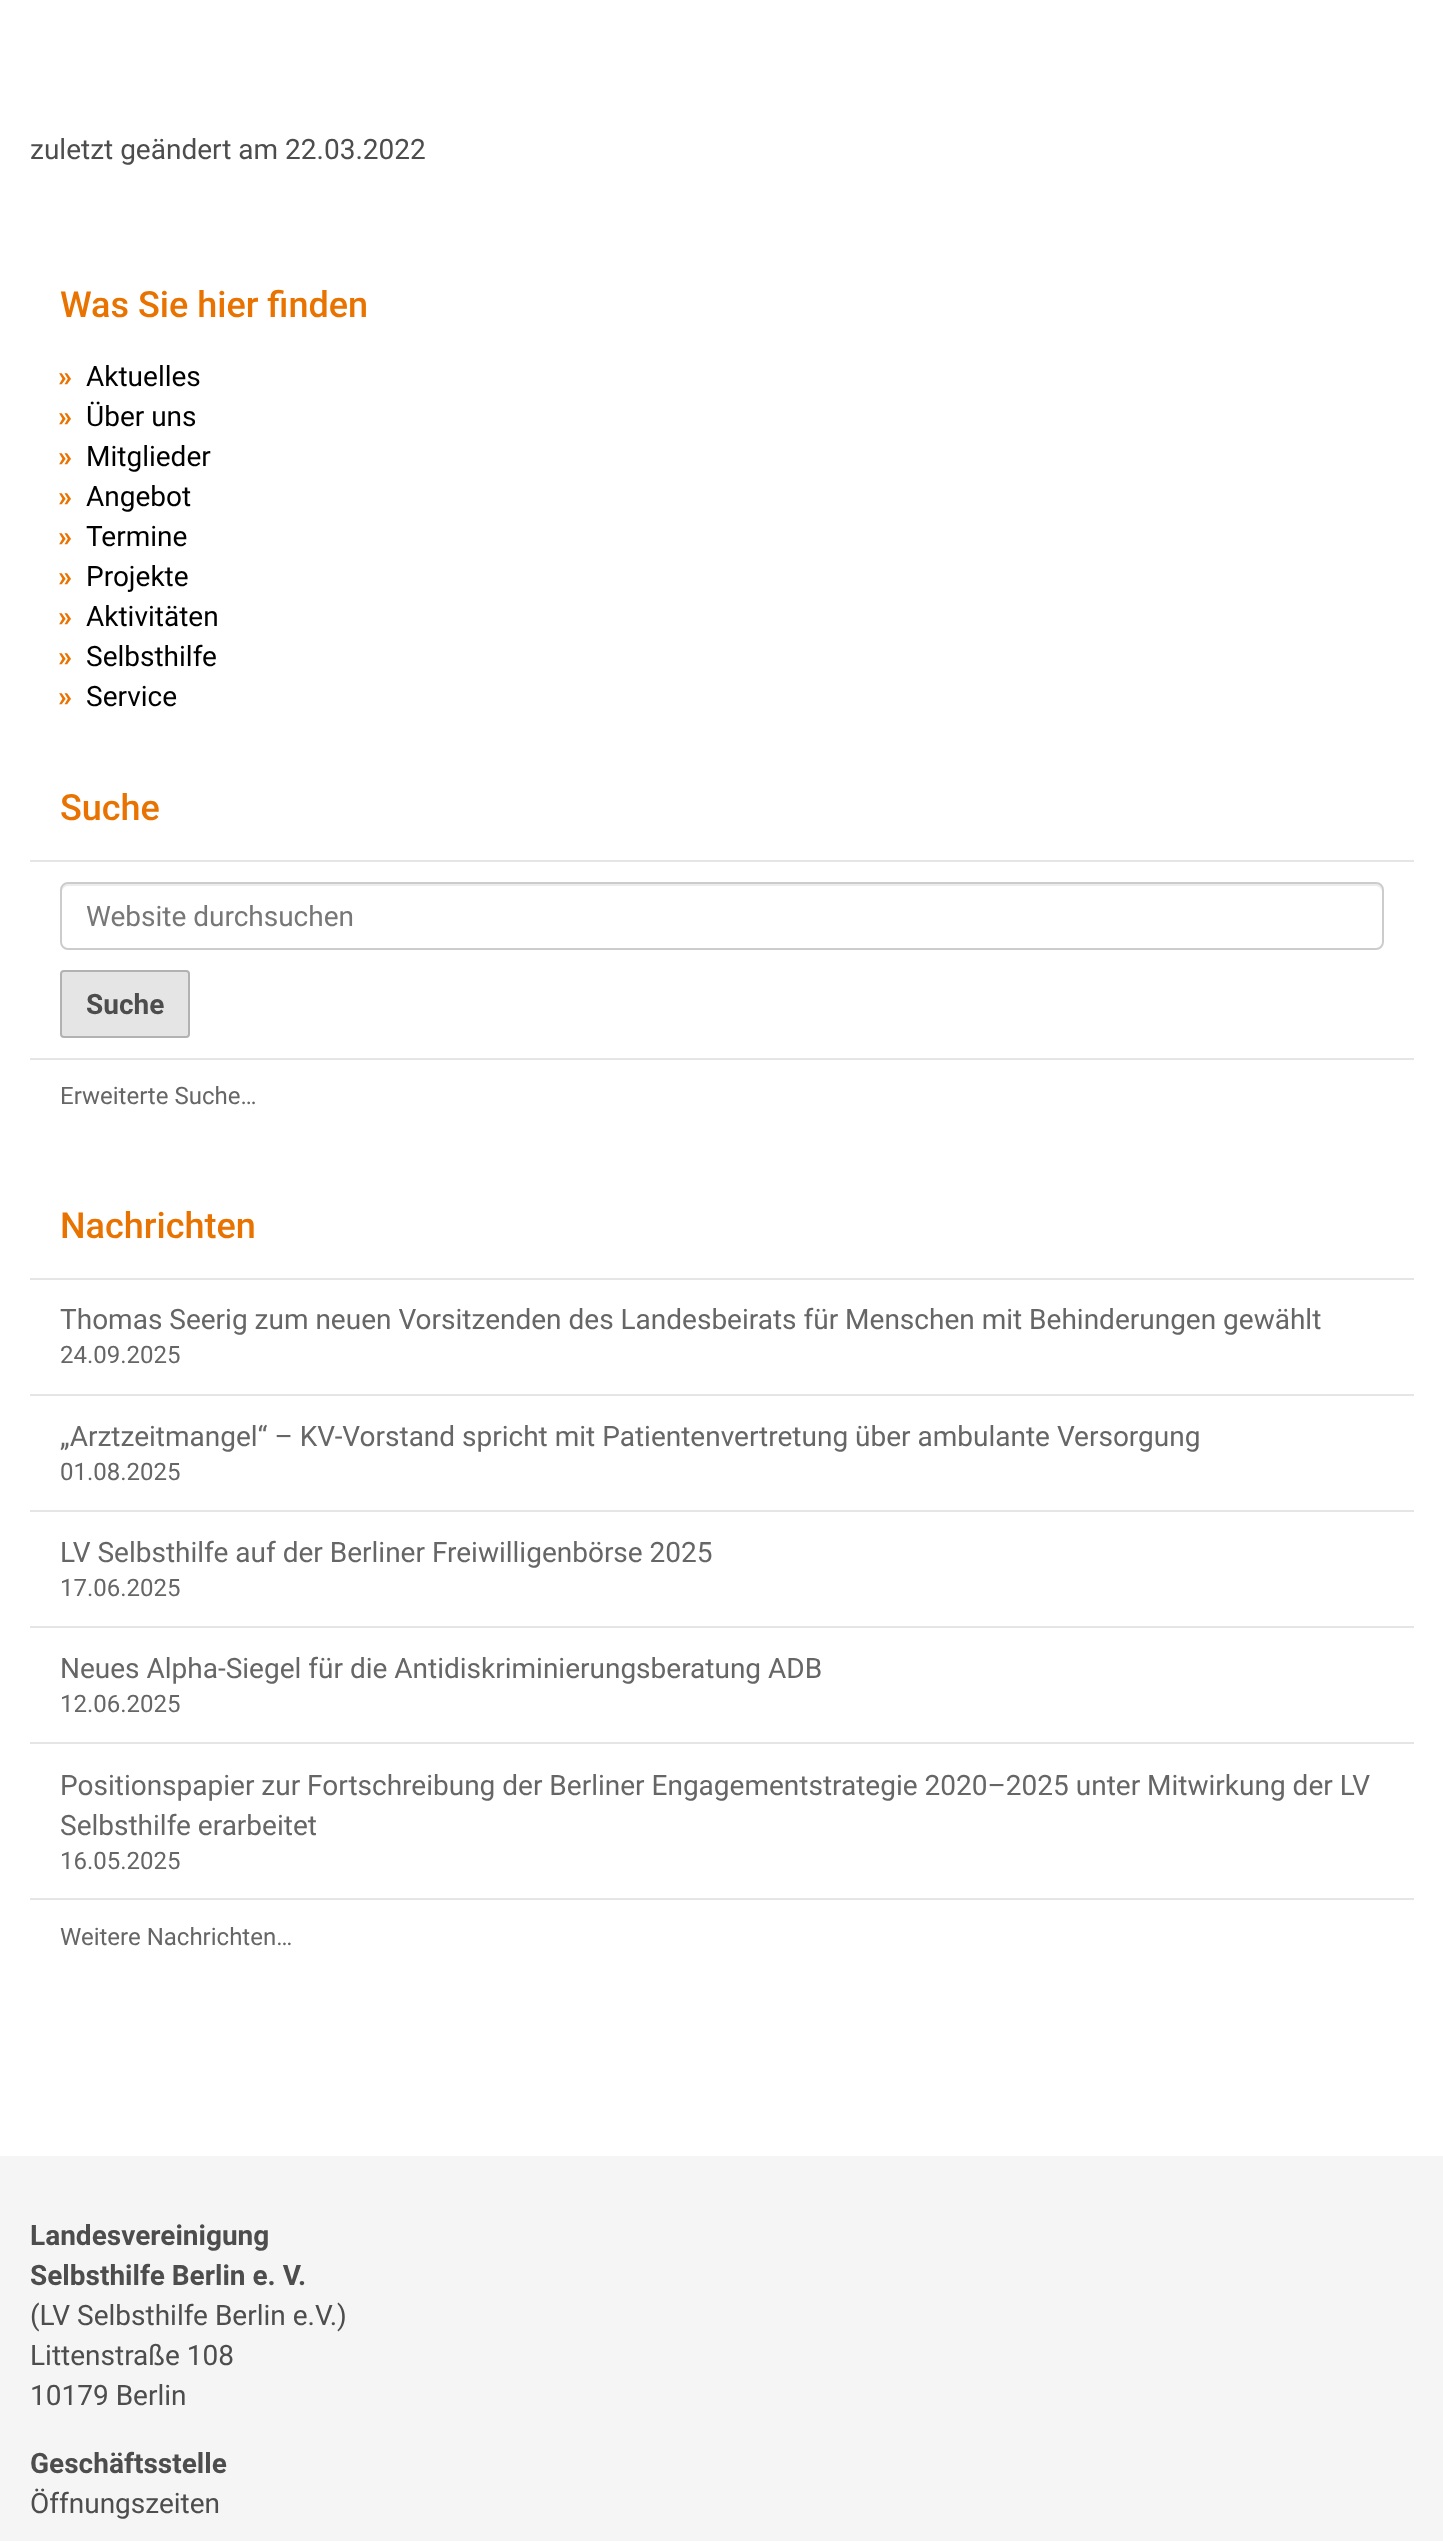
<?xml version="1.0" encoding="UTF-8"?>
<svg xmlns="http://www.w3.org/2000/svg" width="1443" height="2541">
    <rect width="100%" height="100%" fill="#FFFFFF"/>
    <text x="30" y="159" font-family="Roboto" font-size="28" fill="#4D4D4D">zuletzt geändert am 22.03.2022</text>
    <text x="60" y="317" font-family="Roboto" font-size="36" font-weight="500" fill="#E97300">Was Sie hier finden</text>
    <text x="58" y="386" font-family="Roboto" font-size="28" font-weight="700" fill="#E97300">»</text>
    <text x="86" y="386" font-family="Roboto" font-size="28" fill="#000000">Aktuelles</text>
    <text x="58" y="426" font-family="Roboto" font-size="28" font-weight="700" fill="#E97300">»</text>
    <text x="86" y="426" font-family="Roboto" font-size="28" fill="#000000">Über uns</text>
    <text x="58" y="466" font-family="Roboto" font-size="28" font-weight="700" fill="#E97300">»</text>
    <text x="86" y="466" font-family="Roboto" font-size="28" fill="#000000">Mitglieder</text>
    <text x="58" y="506" font-family="Roboto" font-size="28" font-weight="700" fill="#E97300">»</text>
    <text x="86" y="506" font-family="Roboto" font-size="28" fill="#000000">Angebot</text>
    <text x="58" y="546" font-family="Roboto" font-size="28" font-weight="700" fill="#E97300">»</text>
    <text x="86" y="546" font-family="Roboto" font-size="28" fill="#000000">Termine</text>
    <text x="58" y="586" font-family="Roboto" font-size="28" font-weight="700" fill="#E97300">»</text>
    <text x="86" y="586" font-family="Roboto" font-size="28" fill="#000000">Projekte</text>
    <text x="58" y="626" font-family="Roboto" font-size="28" font-weight="700" fill="#E97300">»</text>
    <text x="86" y="626" font-family="Roboto" font-size="28" fill="#000000">Aktivitäten</text>
    <text x="58" y="666" font-family="Roboto" font-size="28" font-weight="700" fill="#E97300">»</text>
    <text x="86" y="666" font-family="Roboto" font-size="28" fill="#000000">Selbsthilfe</text>
    <text x="58" y="706" font-family="Roboto" font-size="28" font-weight="700" fill="#E97300">»</text>
    <text x="86" y="706" font-family="Roboto" font-size="28" fill="#000000">Service</text>
    <text x="60" y="820" font-family="Roboto" font-size="36" font-weight="500" fill="#E97300">Suche</text>
    <rect x="30" y="860" width="1384" height="2" fill="#E5E5E5"/>
    <path d="M 68 886 H 1376 C 1379 886 1382 889 1382 892 V 890 C 1382 887 1379 884 1376 884 H 68 C 65 884 62 887 62 890 V 892 C 62 889 65 886 68 886 Z" fill="#ECECEC"/>
    <rect x="61" y="883" width="1322" height="66" rx="7" fill="none" stroke="#CCCCCC" stroke-width="2"/>
    <text x="86" y="926" font-family="Roboto" font-size="28" fill="#777777">Website durchsuchen</text>
    <rect x="61" y="971" width="128" height="66" rx="3" fill="#E5E5E5" stroke="#B2B2B2" stroke-width="2"/>
    <text x="86" y="1014" font-family="Roboto" font-size="28" font-weight="700" fill="#4D4D4D">Suche</text>
    <rect x="30" y="1058" width="1384" height="2" fill="#E5E5E5"/>
    <text x="60" y="1104" font-family="Roboto" font-size="24" fill="#666666">Erweiterte Suche…</text>
    <text x="60" y="1238" font-family="Roboto" font-size="36" font-weight="500" fill="#E97300">Nachrichten</text>
    <rect x="30" y="1278" width="1384" height="2" fill="#E5E5E5"/>
    <text x="60" y="1329" font-family="Roboto" font-size="28" fill="#666666">Thomas Seerig zum neuen Vorsitzenden des Landesbeirats für Menschen mit Behinderungen gewählt</text>
    <text x="60" y="1363" font-family="Roboto" font-size="24" fill="#666666">24.09.2025</text>
    <rect x="30" y="1394" width="1384" height="2" fill="#E5E5E5"/>
    <text x="60" y="1446" font-family="Roboto" font-size="28" fill="#666666">„Arztzeitmangel“ – KV-Vorstand spricht mit Patientenvertretung über ambulante Versorgung</text>
    <text x="60" y="1480" font-family="Roboto" font-size="24" fill="#666666">01.08.2025</text>
    <rect x="30" y="1510" width="1384" height="2" fill="#E5E5E5"/>
    <text x="60" y="1562" font-family="Roboto" font-size="28" fill="#666666">LV Selbsthilfe auf der Berliner Freiwilligenbörse 2025</text>
    <text x="60" y="1596" font-family="Roboto" font-size="24" fill="#666666">17.06.2025</text>
    <rect x="30" y="1626" width="1384" height="2" fill="#E5E5E5"/>
    <text x="60" y="1678" font-family="Roboto" font-size="28" fill="#666666">Neues Alpha-Siegel für die Antidiskriminierungsberatung ADB</text>
    <text x="60" y="1712" font-family="Roboto" font-size="24" fill="#666666">12.06.2025</text>
    <rect x="30" y="1742" width="1384" height="2" fill="#E5E5E5"/>
    <text font-family="Roboto" font-size="28" fill="#666666">
        <tspan x="60" y="1795">Positionspapier zur Fortschreibung der Berliner Engagementstrategie 2020–2025 unter Mitwirkung der LV</tspan>
        <tspan x="60" y="1835">Selbsthilfe erarbeitet</tspan>
    </text>
    <text x="60" y="1869" font-family="Roboto" font-size="24" fill="#666666">16.05.2025</text>
    <rect x="30" y="1898" width="1384" height="2" fill="#E5E5E5"/>
    <text x="60" y="1945" font-family="Roboto" font-size="24" fill="#666666">Weitere Nachrichten…</text>
    <rect x="0" y="2156" width="1443" height="385" fill="#F5F5F5"/>
    <text font-family="Roboto" font-size="28" font-weight="700" fill="#4D4D4D">
        <tspan x="30" y="2245">Landesvereinigung</tspan>
        <tspan x="30" y="2285">Selbsthilfe Berlin e. V.</tspan>
    </text>
    <text font-family="Roboto" font-size="28" fill="#4D4D4D">
        <tspan x="30" y="2325">(LV Selbsthilfe Berlin e.V.)</tspan>
        <tspan x="30" y="2365">Littenstraße 108</tspan>
        <tspan x="30" y="2405">10179 Berlin</tspan>
    </text>
    <text x="30" y="2473" font-family="Roboto" font-size="28" font-weight="700" fill="#4D4D4D">Geschäftsstelle</text>
    <text x="30" y="2513" font-family="Roboto" font-size="28" fill="#4D4D4D">Öffnungszeiten</text>
</svg>
